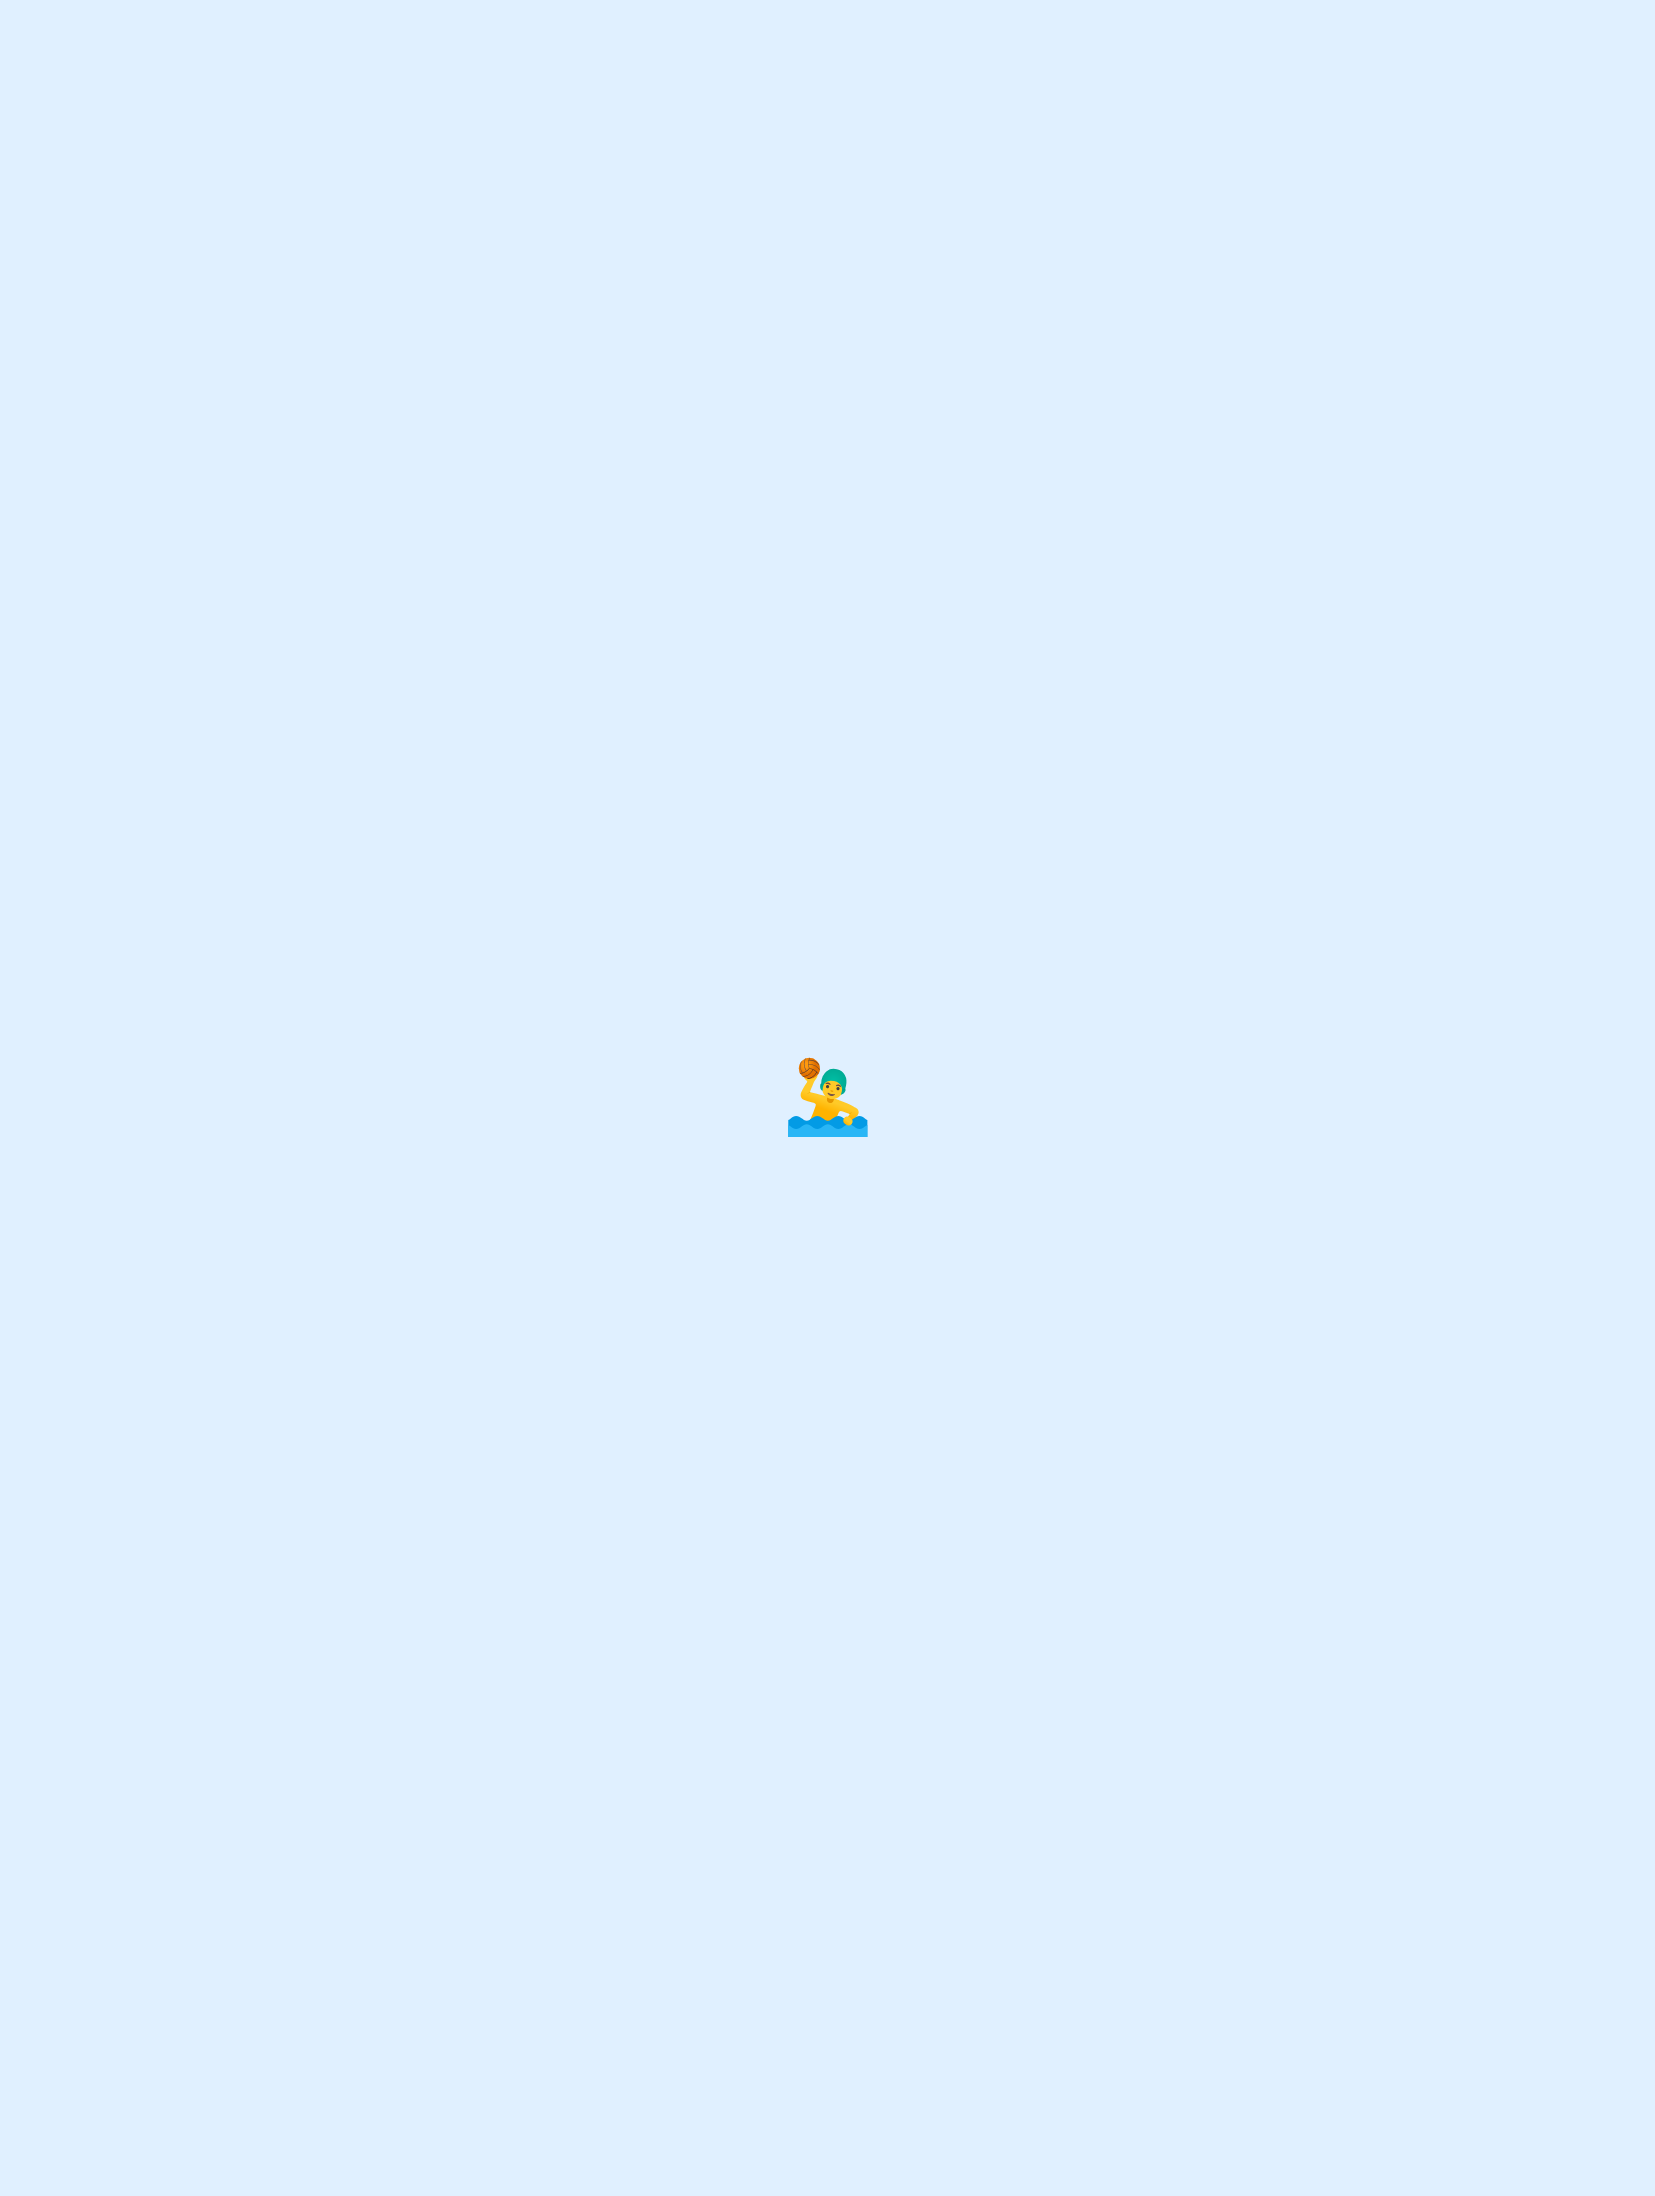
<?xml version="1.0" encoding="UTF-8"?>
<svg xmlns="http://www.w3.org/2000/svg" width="1655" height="2196">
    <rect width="100%" height="100%" fill="#E0F0FF"/>
    <text x="783" y="1122" font-family="Noto Color Emoji" font-size="72" fill="#666666">🤽‍♂️</text>
</svg>
